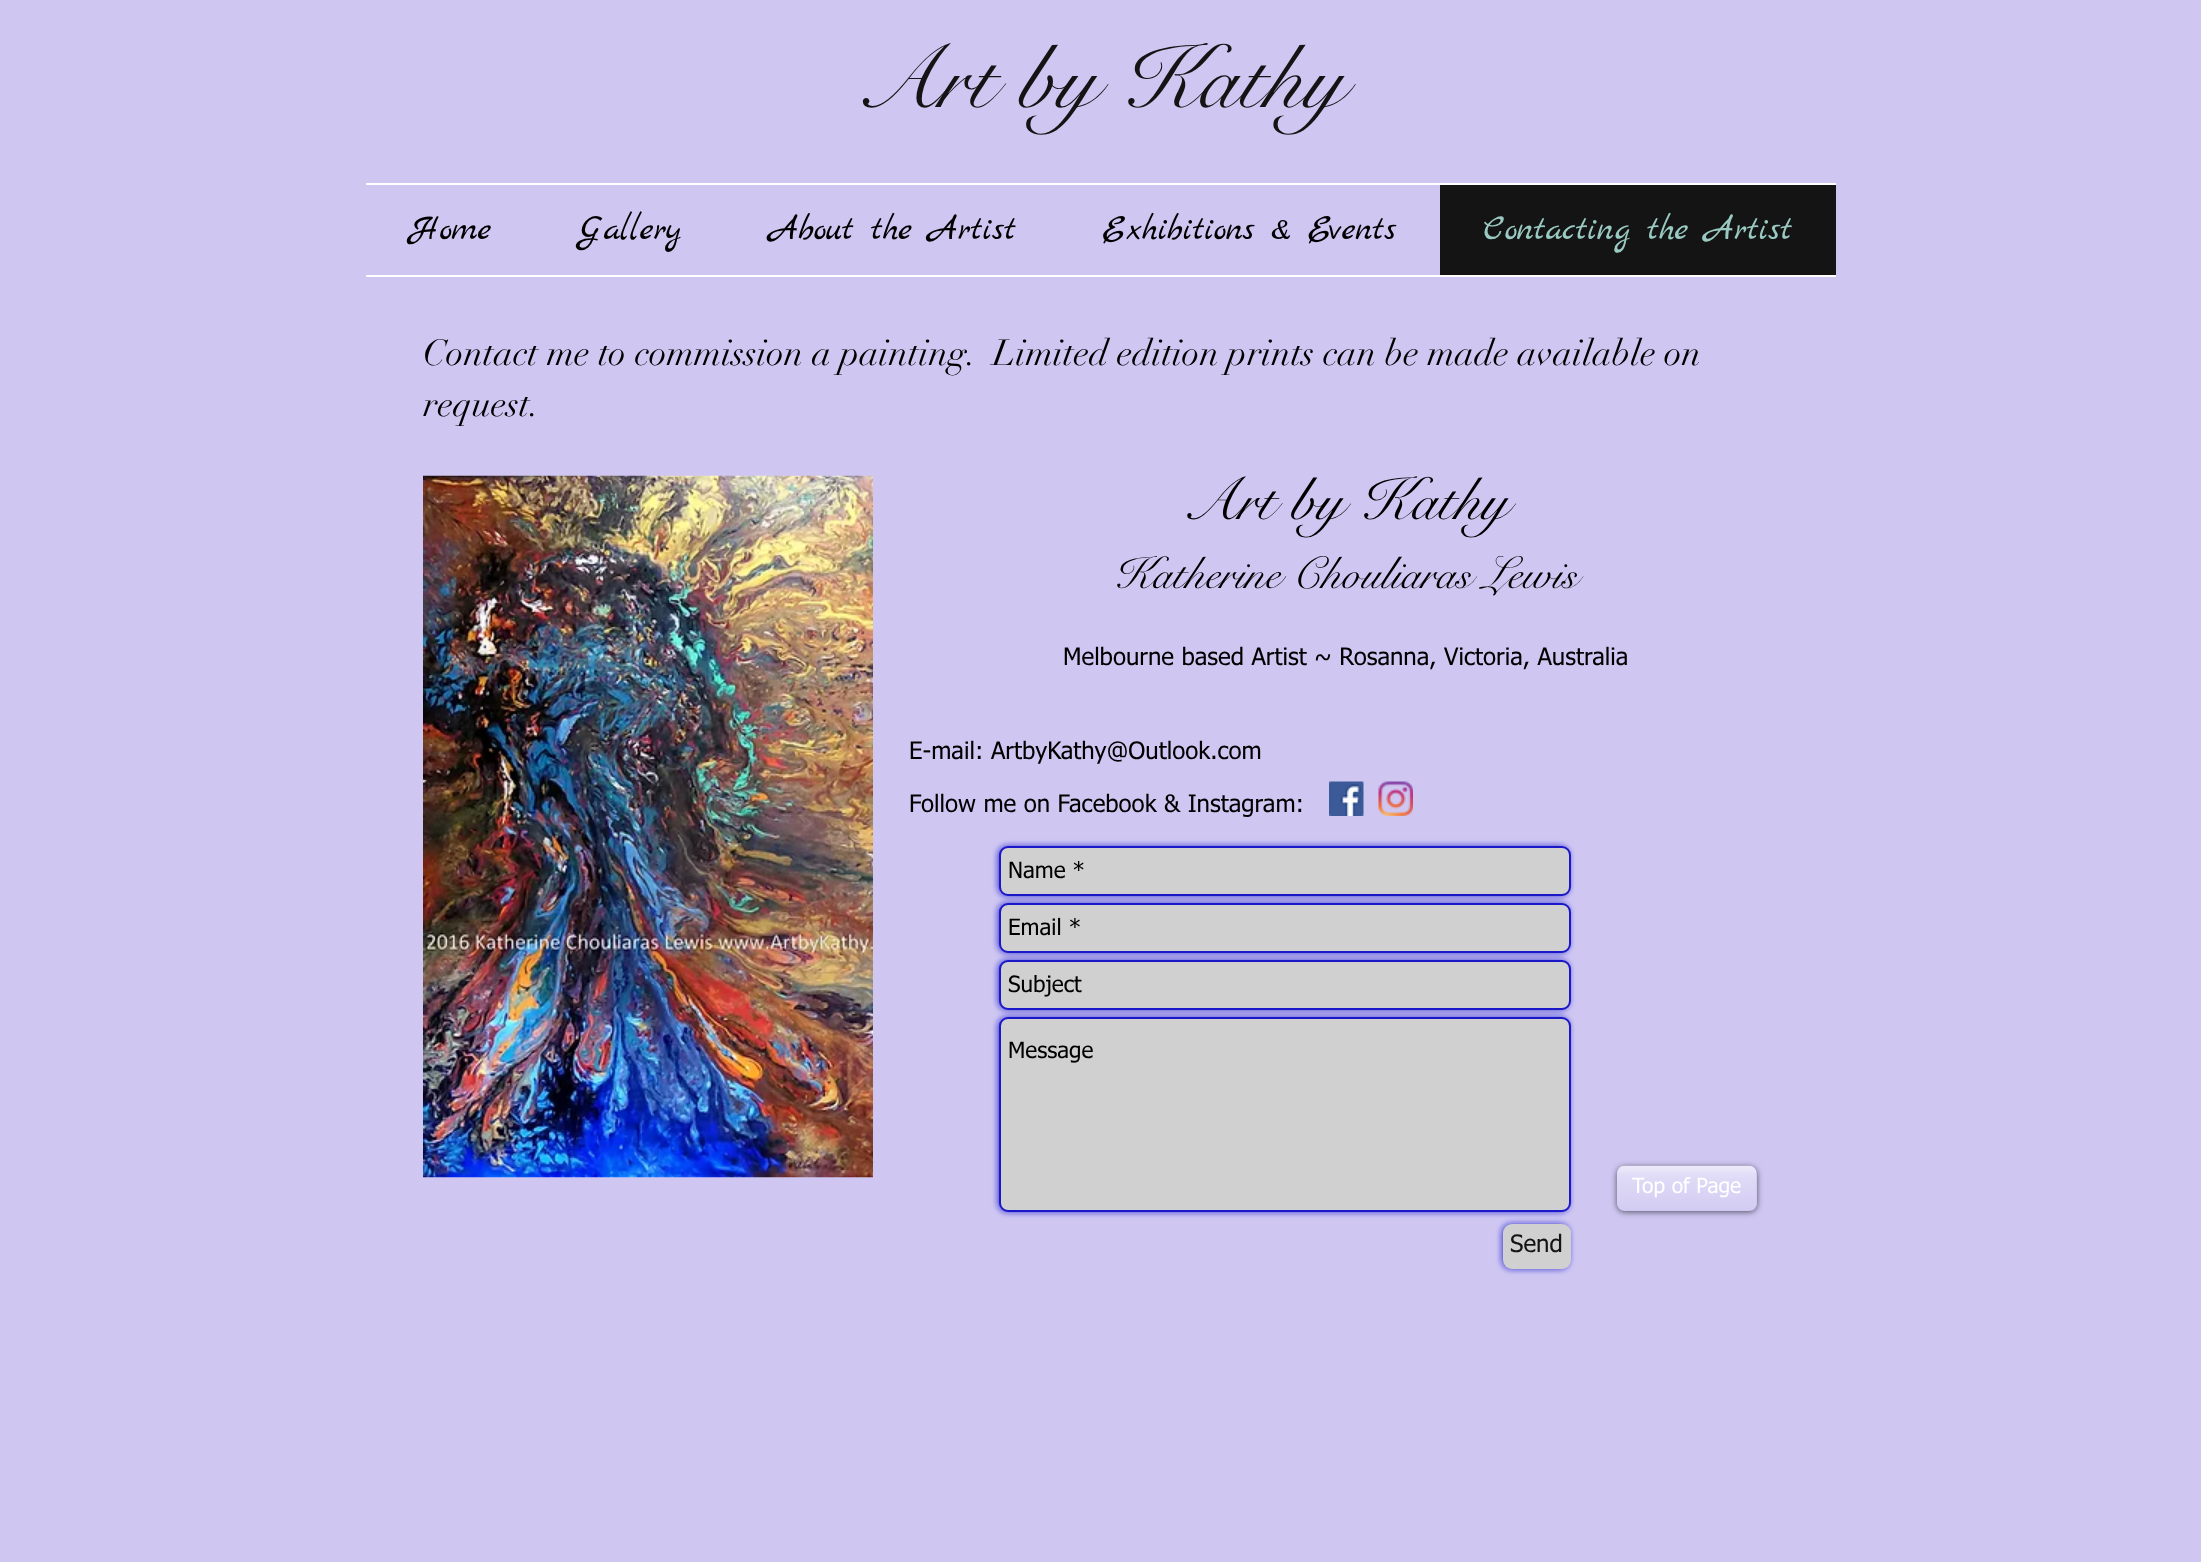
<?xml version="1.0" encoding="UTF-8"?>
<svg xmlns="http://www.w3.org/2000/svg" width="2201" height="1562">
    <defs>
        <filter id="blur1" x="-50%" y="-200%" width="200%" height="500%"><feGaussianBlur stdDeviation="3"/></filter>
        <clipPath id="clip1"><path d="M 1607 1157 H 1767 V 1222 H 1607 Z M 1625 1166 H 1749 C 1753.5 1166 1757 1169.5 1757 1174 V 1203 C 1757 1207.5 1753.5 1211 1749 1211 H 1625 C 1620.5 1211 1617 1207.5 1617 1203 V 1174 C 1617 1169.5 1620.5 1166 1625 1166 Z" clip-rule="evenodd"/></clipPath>
    </defs>
    <rect width="100%" height="100%" fill="#CFC7F2"/>
    <text x="855" y="107" font-family="'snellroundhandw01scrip'" font-size="90" fill="#141414">Art by Kathy</text>
    <rect x="366" y="183" width="1470" height="2" fill="#FFFFFF"/>
    <rect x="366" y="275" width="1470" height="2" fill="#FFFFFF"/>
    <text x="410" y="239" font-family="Marck Script" font-size="36" fill="#000000">Home</text>
    <text x="579" y="239" font-family="Marck Script" font-size="36" fill="#000000">Gallery</text>
    <text x="770" y="239" font-family="Marck Script" font-size="36" fill="#000000">About the Artist</text>
    <text x="1102" y="239" font-family="Marck Script" font-size="36" fill="#000000">Exhibitions &amp; Events</text>
    <rect x="1440" y="185" width="396" height="90" fill="#141414"/>
    <text x="1483" y="239" font-family="Marck Script" font-size="36" fill="#99C9C1">Contacting the Artist</text>
    <text x="423" y="365" font-family="didot" font-size="36" fill="#000000">Contact me to commission a painting.</text>
    <text x="993" y="365" font-family="didot" font-size="36" fill="#000000">Limited edition prints can be made available on</text>
    <text x="423" y="416" font-family="didot" font-size="36" fill="#000000">request.</text>
    <image x="423" y="475" width="450" height="703" href="img_01.png"/>
    <text x="1182" y="519" font-family="'snellroundhandw01scrip'" font-size="60" fill="#000000">Art by Kathy</text>
    <text x="1113" y="588" font-family="'snellroundhandw01scrip'" font-size="45" fill="#000000">Katherine Chouliaras Lewis</text>
    <text x="1063" y="665" font-family="tahoma" font-size="24" fill="#000000">Melbourne based Artist ~ Rosanna, Victoria, Australia</text>
    <text x="909" y="759" font-family="tahoma" font-size="24" fill="#000000">E-mail: ArtbyKathy@Outlook.com</text>
    <text x="909" y="812" font-family="tahoma" font-size="24" fill="#000000">Follow me on Facebook &amp; Instagram:</text>
    <image x="1329" y="781" width="35" height="35" href="img_02.png"/>
    <image x="1378" y="781" width="35" height="35" href="img_03.png"/>
    <rect x="998" y="846" width="571" height="50" rx="9" fill="#1B18C9" fill-opacity="0.84" filter="url(#blur1)"/>
    <rect x="1000" y="847" width="570" height="48" rx="8" fill="#D0D0D0" stroke="#1B18C9" stroke-width="2"/>
    <text x="1008" y="878" font-family="tahoma" font-size="22.5" fill="#000000">Name *</text>
    <rect x="998" y="903" width="571" height="50" rx="9" fill="#1B18C9" fill-opacity="0.84" filter="url(#blur1)"/>
    <rect x="1000" y="904" width="570" height="48" rx="8" fill="#D0D0D0" stroke="#1B18C9" stroke-width="2"/>
    <text x="1008" y="935" font-family="tahoma" font-size="22.5" fill="#000000">Email *</text>
    <rect x="998" y="960" width="571" height="50" rx="9" fill="#1B18C9" fill-opacity="0.84" filter="url(#blur1)"/>
    <rect x="1000" y="961" width="570" height="48" rx="8" fill="#D0D0D0" stroke="#1B18C9" stroke-width="2"/>
    <text x="1008" y="992" font-family="tahoma" font-size="22.5" fill="#000000">Subject</text>
    <rect x="998" y="1017" width="571" height="195" rx="9" fill="#1B18C9" fill-opacity="0.84" filter="url(#blur1)"/>
    <rect x="1000" y="1018" width="570" height="193" rx="8" fill="#D0D0D0" stroke="#1B18C9" stroke-width="2"/>
    <text x="1008" y="1058" font-family="tahoma" font-size="22.5" fill="#000000">Message</text>
    <rect x="1502" y="1224" width="67" height="45" rx="9" fill="#1B18C9" fill-opacity="0.84" filter="url(#blur1)"/>
    <rect x="1503" y="1224" width="68" height="45" rx="9" fill="#D0D0D0"/>
    <text x="1510" y="1252" font-family="tahoma" font-size="24" fill="#141414">Send</text>
    <g clip-path="url(#clip1)">
        <rect x="1617" y="1167" width="140" height="45" rx="8" fill="#000000" fill-opacity="0.6" filter="url(#blur1)"/>
    </g>
    <image x="1617" y="1165" width="140" height="45" href="img_04.png"/>
    <text x="1632" y="1193" font-family="tahoma" font-size="21" fill="#FFFFFF">Top of Page</text>
</svg>
